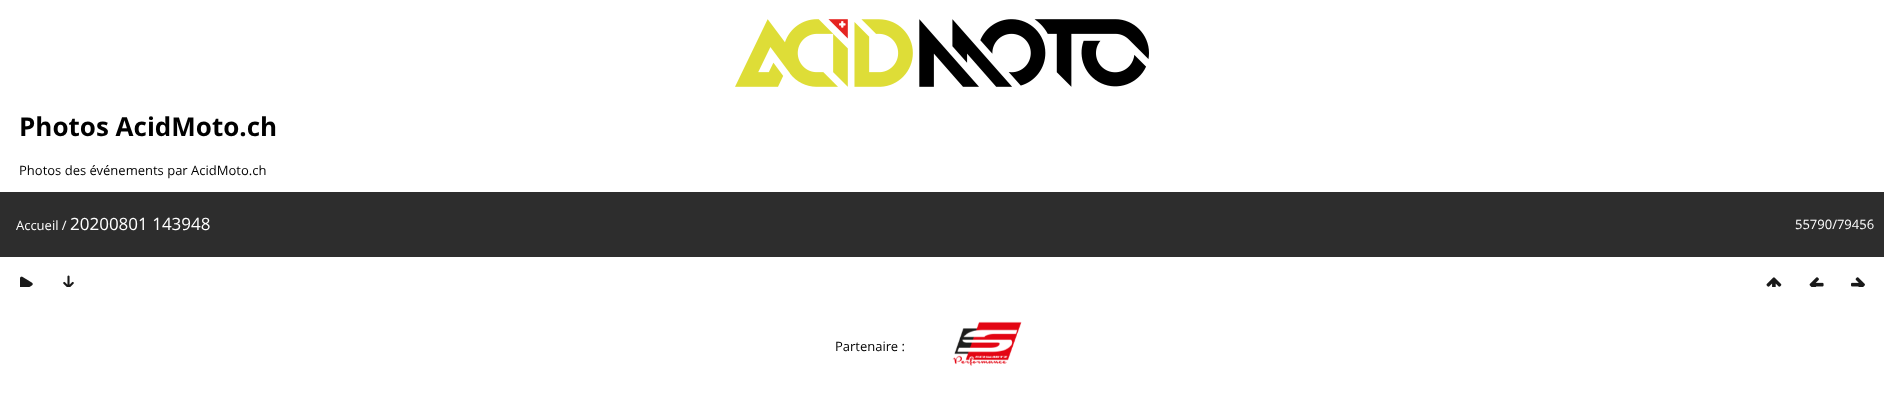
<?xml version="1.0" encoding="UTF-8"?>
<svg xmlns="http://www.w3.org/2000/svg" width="1884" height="405">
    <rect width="100%" height="100%" fill="#FFFFFF"/>
    <image x="735" y="19" width="414" height="68" href="img_01.png"/>
    <text x="19" y="136" font-family="Open Sans" font-size="26" font-weight="700" fill="#000000">Photos AcidMoto.ch</text>
    <text x="19" y="175" font-family="Open Sans" font-size="13" fill="#000000">Photos des événements par AcidMoto.ch</text>
    <rect x="0" y="192" width="1884" height="65" fill="#2D2D2D"/>
    <text x="16" y="230" font-family="Open Sans" font-size="13" fill="#FFFFFF">Accueil /</text>
    <text x="70" y="230" font-family="Open Sans" font-size="17" fill="#FFFFFF">20200801 143948</text>
    <text x="1795" y="229" font-family="Open Sans" font-size="13" fill="#FFFFFF">55790/79456</text>
    <image x="20" y="276" width="13" height="11" href="img_02.png"/>
    <image x="63" y="275" width="11" height="12" href="img_03.png"/>
    <image x="1766" y="277" width="16" height="10" href="img_04.png"/>
    <image x="1809" y="277" width="15" height="10" href="img_05.png"/>
    <image x="1851" y="277" width="14" height="10" href="img_06.png"/>
    <text x="835" y="351" font-family="Open Sans" font-size="13" fill="#000000">Partenaire :</text>
    <image x="952" y="321" width="70" height="45" href="img_07.png"/>
</svg>
